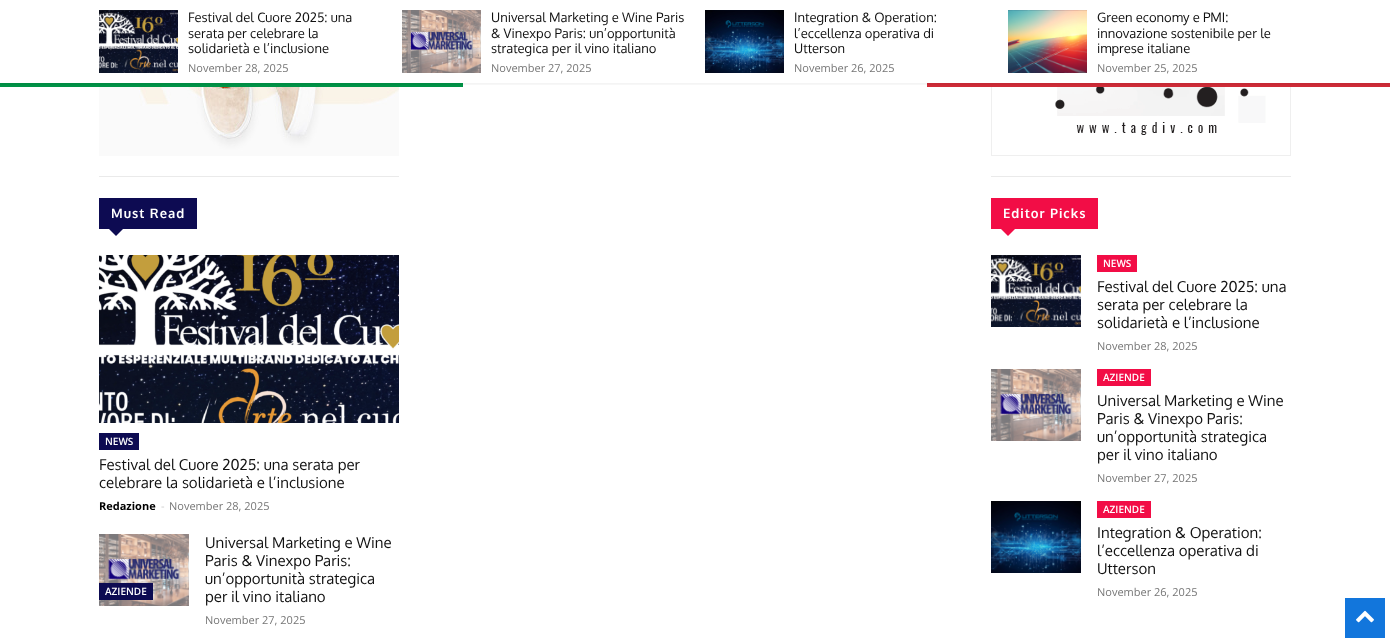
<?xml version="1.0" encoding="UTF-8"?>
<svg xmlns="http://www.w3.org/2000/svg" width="1390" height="642">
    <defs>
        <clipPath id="clip1"><rect x="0" y="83" width="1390" height="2"/></clipPath>
        <filter id="blur1" x="-50%" y="-200%" width="200%" height="500%"><feGaussianBlur stdDeviation="1.5"/></filter>
    </defs>
    <rect width="100%" height="100%" fill="#FFFFFF"/>
    <image x="99" y="10" width="79" height="63" href="img_01.png"/>
    <image x="402" y="10" width="79" height="63" href="img_02.png"/>
    <image x="705" y="10" width="79" height="63" href="img_03.png"/>
    <image x="1008" y="10" width="79" height="63" href="img_04.png"/>
    <rect x="0" y="83" width="463" height="4" fill="#009246"/>
    <rect x="927" y="83" width="463" height="4" fill="#CE2B37"/>
    <image x="99" y="87" width="300" height="69" href="img_05.png"/>
    <image x="991" y="87" width="300" height="69" href="img_08.png"/>
    <g clip-path="url(#clip1)">
        <rect x="0" y="2" width="1390" height="83" fill="#000000" fill-opacity="0.05" filter="url(#blur1)"/>
    </g>
    <text font-family="Oxygen" font-size="13" fill="#111111">
        <tspan x="188" y="22">Festival del Cuore 2025: una</tspan>
        <tspan x="188" y="38">serata per celebrare la</tspan>
        <tspan x="188" y="53">solidarietà e l’inclusione</tspan>
    </text>
    <text x="188" y="72" font-family="Open Sans" font-size="11" fill="#767676">November 28, 2025</text>
    <text font-family="Oxygen" font-size="13" fill="#111111">
        <tspan x="491" y="22">Universal Marketing e Wine Paris</tspan>
        <tspan x="491" y="38">&amp; Vinexpo Paris: un’opportunità</tspan>
        <tspan x="491" y="53">strategica per il vino italiano</tspan>
    </text>
    <text x="491" y="72" font-family="Open Sans" font-size="11" fill="#767676">November 27, 2025</text>
    <text font-family="Oxygen" font-size="13" fill="#111111">
        <tspan x="794" y="22">Integration &amp; Operation:</tspan>
        <tspan x="794" y="38">l’eccellenza operativa di</tspan>
        <tspan x="794" y="53">Utterson</tspan>
    </text>
    <text x="794" y="72" font-family="Open Sans" font-size="11" fill="#767676">November 26, 2025</text>
    <text font-family="Oxygen" font-size="13" fill="#111111">
        <tspan x="1097" y="22">Green economy e PMI:</tspan>
        <tspan x="1097" y="38">innovazione sostenibile per le</tspan>
        <tspan x="1097" y="53">imprese italiane</tspan>
    </text>
    <text x="1097" y="72" font-family="Open Sans" font-size="11" fill="#767676">November 25, 2025</text>
    <rect x="99" y="176" width="300" height="1" fill="#EAEAEA"/>
    <rect x="99" y="198" width="98" height="31" fill="#0D0B52"/>
    <text x="111" y="218" font-family="Oxygen" font-size="13" font-weight="700" letter-spacing="1" fill="#FFFFFF">Must Read</text>
    <path d="M 109 229 H 123 L 116 236 Z" fill="#0D0B52"/>
    <image x="99" y="255" width="300" height="168" href="img_06.png"/>
    <rect x="99" y="433" width="40" height="17" fill="#0D0B52"/>
    <text x="105" y="445" font-family="Open Sans" font-size="10" font-weight="600" fill="#FFFFFF">NEWS</text>
    <text font-family="Oxygen" font-size="15" fill="#111111">
        <tspan x="99" y="470">Festival del Cuore 2025: una serata per</tspan>
        <tspan x="99" y="488">celebrare la solidarietà e l’inclusione</tspan>
    </text>
    <text x="99" y="510" font-family="Open Sans" font-size="11" font-weight="700" fill="#000000">Redazione</text>
    <text x="161" y="510" font-family="Open Sans" font-size="11" fill="#CCCCCC">-</text>
    <text x="169" y="510" font-family="Open Sans" font-size="11" fill="#767676">November 28, 2025</text>
    <image x="99" y="534" width="90" height="72" href="img_07.png"/>
    <rect x="99" y="583" width="54" height="17" fill="#0D0B52"/>
    <text x="105" y="595" font-family="Open Sans" font-size="10" font-weight="600" fill="#FFFFFF">AZIENDE</text>
    <text font-family="Oxygen" font-size="15" fill="#111111">
        <tspan x="205" y="548">Universal Marketing e Wine</tspan>
        <tspan x="205" y="566">Paris &amp; Vinexpo Paris:</tspan>
        <tspan x="205" y="584">un’opportunità strategica</tspan>
        <tspan x="205" y="602">per il vino italiano</tspan>
    </text>
    <text x="205" y="624" font-family="Open Sans" font-size="11" fill="#767676">November 27, 2025</text>
    <rect x="991" y="176" width="300" height="1" fill="#EAEAEA"/>
    <rect x="991" y="198" width="107" height="31" fill="#F20D46"/>
    <text x="1003" y="218" font-family="Oxygen" font-size="13" font-weight="700" letter-spacing="1" fill="#FFFFFF">Editor Picks</text>
    <path d="M 1001 229 H 1015 L 1008 236 Z" fill="#F20D46"/>
    <image x="991" y="255" width="90" height="72" href="img_09.png"/>
    <rect x="1097" y="255" width="40" height="17" fill="#F20D46"/>
    <text x="1103" y="267" font-family="Open Sans" font-size="10" font-weight="600" fill="#FFFFFF">NEWS</text>
    <text font-family="Oxygen" font-size="15" fill="#111111">
        <tspan x="1097" y="292">Festival del Cuore 2025: una</tspan>
        <tspan x="1097" y="310">serata per celebrare la</tspan>
        <tspan x="1097" y="328">solidarietà e l’inclusione</tspan>
    </text>
    <text x="1097" y="350" font-family="Open Sans" font-size="11" fill="#767676">November 28, 2025</text>
    <image x="991" y="369" width="90" height="72" href="img_07.png"/>
    <rect x="1097" y="369" width="54" height="17" fill="#F20D46"/>
    <text x="1103" y="381" font-family="Open Sans" font-size="10" font-weight="600" fill="#FFFFFF">AZIENDE</text>
    <text font-family="Oxygen" font-size="15" fill="#111111">
        <tspan x="1097" y="406">Universal Marketing e Wine</tspan>
        <tspan x="1097" y="424">Paris &amp; Vinexpo Paris:</tspan>
        <tspan x="1097" y="442">un’opportunità strategica</tspan>
        <tspan x="1097" y="460">per il vino italiano</tspan>
    </text>
    <text x="1097" y="482" font-family="Open Sans" font-size="11" fill="#767676">November 27, 2025</text>
    <image x="991" y="501" width="90" height="72" href="img_10.png"/>
    <rect x="1097" y="501" width="54" height="17" fill="#F20D46"/>
    <text x="1103" y="513" font-family="Open Sans" font-size="10" font-weight="600" fill="#FFFFFF">AZIENDE</text>
    <text font-family="Oxygen" font-size="15" fill="#111111">
        <tspan x="1097" y="538">Integration &amp; Operation:</tspan>
        <tspan x="1097" y="556">l’eccellenza operativa di</tspan>
        <tspan x="1097" y="574">Utterson</tspan>
    </text>
    <text x="1097" y="596" font-family="Open Sans" font-size="11" fill="#767676">November 26, 2025</text>
    <rect x="1345" y="598" width="40" height="40" fill="#1276DC"/>
    <image x="1356" y="610" width="18" height="13" href="img_11.png"/>
</svg>
